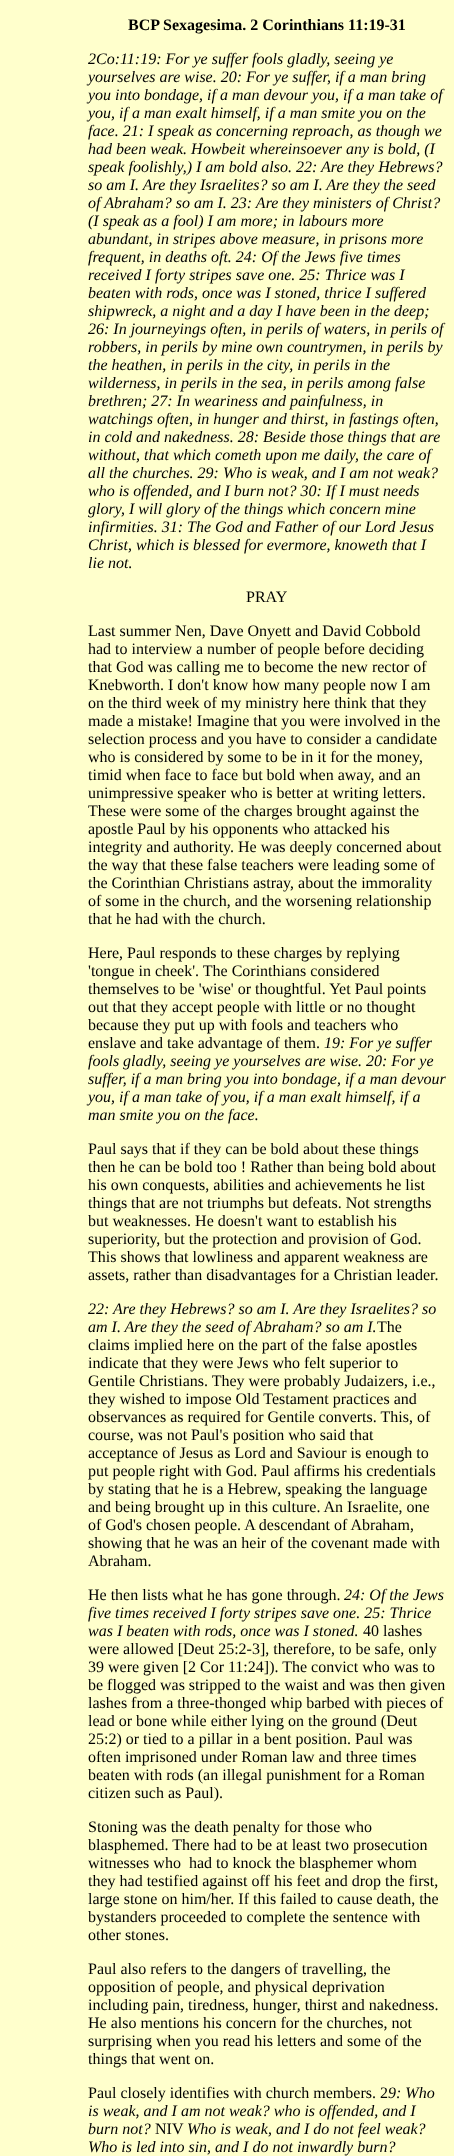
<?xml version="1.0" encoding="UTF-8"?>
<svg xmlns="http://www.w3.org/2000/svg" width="454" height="2156">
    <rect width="100%" height="100%" fill="#FFFFCC"/>
    <text x="128" y="30" font-family="Liberation Serif" font-size="16" font-weight="700" fill="#000000">BCP Sexagesima. 2 Corinthians 11:19-31</text>
    <text font-family="Liberation Serif" font-size="16" font-style="italic" fill="#000000">
        <tspan x="88" y="64">2Co:11:19: For ye suffer fools gladly, seeing ye</tspan>
        <tspan x="88" y="82">yourselves are wise. 20: For ye suffer, if a man bring</tspan>
        <tspan x="88" y="100">you into bondage, if a man devour you, if a man take of</tspan>
        <tspan x="88" y="118">you, if a man exalt himself, if a man smite you on the</tspan>
        <tspan x="88" y="136">face. 21: I speak as concerning reproach, as though we</tspan>
        <tspan x="88" y="154">had been weak. Howbeit whereinsoever any is bold, (I</tspan>
        <tspan x="88" y="172">speak foolishly,) I am bold also. 22: Are they Hebrews?</tspan>
        <tspan x="88" y="190">so am I. Are they Israelites? so am I. Are they the seed</tspan>
        <tspan x="88" y="208">of Abraham? so am I. 23: Are they ministers of Christ?</tspan>
        <tspan x="88" y="226">(I speak as a fool) I am more; in labours more</tspan>
        <tspan x="88" y="244">abundant, in stripes above measure, in prisons more</tspan>
        <tspan x="88" y="262">frequent, in deaths oft. 24: Of the Jews five times</tspan>
        <tspan x="88" y="280">received I forty stripes save one. 25: Thrice was I</tspan>
        <tspan x="88" y="298">beaten with rods, once was I stoned, thrice I suffered</tspan>
        <tspan x="88" y="316">shipwreck, a night and a day I have been in the deep;</tspan>
        <tspan x="88" y="334">26: In journeyings often, in perils of waters, in perils of</tspan>
        <tspan x="88" y="352">robbers, in perils by mine own countrymen, in perils by</tspan>
        <tspan x="88" y="370">the heathen, in perils in the city, in perils in the</tspan>
        <tspan x="88" y="388">wilderness, in perils in the sea, in perils among false</tspan>
        <tspan x="88" y="406">brethren; 27: In weariness and painfulness, in</tspan>
        <tspan x="88" y="424">watchings often, in hunger and thirst, in fastings often,</tspan>
        <tspan x="88" y="442">in cold and nakedness. 28: Beside those things that are</tspan>
        <tspan x="88" y="460">without, that which cometh upon me daily, the care of</tspan>
        <tspan x="88" y="478">all the churches. 29: Who is weak, and I am not weak?</tspan>
        <tspan x="88" y="496">who is offended, and I burn not? 30: If I must needs</tspan>
        <tspan x="88" y="514">glory, I will glory of the things which concern mine</tspan>
        <tspan x="88" y="532">infirmities. 31: The God and Father of our Lord Jesus</tspan>
        <tspan x="88" y="550">Christ, which is blessed for evermore, knoweth that I</tspan>
        <tspan x="88" y="568">lie not.</tspan>
    </text>
    <text x="246" y="602" font-family="Liberation Serif" font-size="16" fill="#000000">PRAY</text>
    <text font-family="Liberation Serif" font-size="16" fill="#000000">
        <tspan x="88" y="636">Last summer Nen, Dave Onyett and David Cobbold</tspan>
        <tspan x="88" y="654">had to interview a number of people before deciding</tspan>
        <tspan x="88" y="672">that God was calling me to become the new rector of</tspan>
        <tspan x="88" y="690">Knebworth. I don't know how many people now I am</tspan>
        <tspan x="88" y="708">on the third week of my ministry here think that they</tspan>
        <tspan x="88" y="726">made a mistake! Imagine that you were involved in the</tspan>
        <tspan x="88" y="744">selection process and you have to consider a candidate</tspan>
        <tspan x="88" y="762">who is considered by some to be in it for the money,</tspan>
        <tspan x="88" y="780">timid when face to face but bold when away, and an</tspan>
        <tspan x="88" y="798">unimpressive speaker who is better at writing letters.</tspan>
        <tspan x="88" y="816">These were some of the charges brought against the</tspan>
        <tspan x="88" y="834">apostle Paul by his opponents who attacked his</tspan>
        <tspan x="88" y="852">integrity and authority. He was deeply concerned about</tspan>
        <tspan x="88" y="870">the way that these false teachers were leading some of</tspan>
        <tspan x="88" y="888">the Corinthian Christians astray, about the immorality</tspan>
        <tspan x="88" y="906">of some in the church, and the worsening relationship</tspan>
        <tspan x="88" y="924">that he had with the church.</tspan>
    </text>
    <text font-family="Liberation Serif" font-size="16" fill="#000000">
        <tspan x="88" y="958">Here, Paul responds to these charges by replying</tspan>
        <tspan x="88" y="976">'tongue in cheek'. The Corinthians considered</tspan>
        <tspan x="88" y="994">themselves to be 'wise' or thoughtful. Yet Paul points</tspan>
        <tspan x="88" y="1012">out that they accept people with little or no thought</tspan>
        <tspan x="88" y="1030">because they put up with fools and teachers who</tspan>
        <tspan x="88" y="1048">enslave and take advantage of them.</tspan>
    </text>
    <text x="324" y="1048" font-family="Liberation Serif" font-size="16" font-style="italic" fill="#000000">19: For ye suffer</text>
    <text font-family="Liberation Serif" font-size="16" font-style="italic" fill="#000000">
        <tspan x="88" y="1066">fools gladly, seeing ye yourselves are wise. 20: For ye</tspan>
        <tspan x="88" y="1084">suffer, if a man bring you into bondage, if a man devour</tspan>
        <tspan x="88" y="1102">you, if a man take of you, if a man exalt himself, if a</tspan>
        <tspan x="88" y="1120">man smite you on the face.</tspan>
    </text>
    <text font-family="Liberation Serif" font-size="16" fill="#000000">
        <tspan x="88" y="1154">Paul says that if they can be bold about these things</tspan>
        <tspan x="88" y="1172">then he can be bold too ! Rather than being bold about</tspan>
        <tspan x="88" y="1190">his own conquests, abilities and achievements he list</tspan>
        <tspan x="88" y="1208">things that are not triumphs but defeats. Not strengths</tspan>
        <tspan x="88" y="1226">but weaknesses. He doesn't want to establish his</tspan>
        <tspan x="88" y="1244">superiority, but the protection and provision of God.</tspan>
        <tspan x="88" y="1262">This shows that lowliness and apparent weakness are</tspan>
        <tspan x="88" y="1280">assets, rather than disadvantages for a Christian leader.</tspan>
    </text>
    <text font-family="Liberation Serif" font-size="16" font-style="italic" fill="#000000">
        <tspan x="88" y="1314">22: Are they Hebrews? so am I. Are they Israelites? so</tspan>
        <tspan x="88" y="1332">am I. Are they the seed of Abraham? so am I.</tspan>
    </text>
    <text x="377" y="1332" font-family="Liberation Serif" font-size="16" fill="#000000">The</text>
    <text font-family="Liberation Serif" font-size="16" fill="#000000">
        <tspan x="88" y="1350">claims implied here on the part of the false apostles</tspan>
        <tspan x="88" y="1368">indicate that they were Jews who felt superior to</tspan>
        <tspan x="88" y="1386">Gentile Christians. They were probably Judaizers, i.e.,</tspan>
        <tspan x="88" y="1404">they wished to impose Old Testament practices and</tspan>
        <tspan x="88" y="1422">observances as required for Gentile converts. This, of</tspan>
        <tspan x="88" y="1440">course, was not Paul's position who said that</tspan>
        <tspan x="88" y="1458">acceptance of Jesus as Lord and Saviour is enough to</tspan>
        <tspan x="88" y="1476">put people right with God. Paul affirms his credentials</tspan>
        <tspan x="88" y="1494">by stating that he is a Hebrew, speaking the language</tspan>
        <tspan x="88" y="1512">and being brought up in this culture. An Israelite, one</tspan>
        <tspan x="88" y="1530">of God's chosen people. A descendant of Abraham,</tspan>
        <tspan x="88" y="1548">showing that he was an heir of the covenant made with</tspan>
        <tspan x="88" y="1566">Abraham.</tspan>
    </text>
    <text x="88" y="1600" font-family="Liberation Serif" font-size="16" fill="#000000">He then lists what he has gone through.</text>
    <text x="344" y="1600" font-family="Liberation Serif" font-size="16" font-style="italic" fill="#000000">24: Of the Jews</text>
    <text font-family="Liberation Serif" font-size="16" font-style="italic" fill="#000000">
        <tspan x="88" y="1618">five times received I forty stripes save one. 25: Thrice</tspan>
        <tspan x="88" y="1636">was I beaten with rods, once was I stoned.</tspan>
    </text>
    <text x="363" y="1636" font-family="Liberation Serif" font-size="16" fill="#000000">40 lashes</text>
    <text font-family="Liberation Serif" font-size="16" fill="#000000">
        <tspan x="88" y="1654">were allowed [Deut 25:2-3], therefore, to be safe, only</tspan>
        <tspan x="88" y="1672">39 were given [2 Cor 11:24]). The convict who was to</tspan>
        <tspan x="88" y="1690">be flogged was stripped to the waist and was then given</tspan>
        <tspan x="88" y="1708">lashes from a three-thonged whip barbed with pieces of</tspan>
        <tspan x="88" y="1726">lead or bone while either lying on the ground (Deut</tspan>
        <tspan x="88" y="1744">25:2) or tied to a pillar in a bent position. Paul was</tspan>
        <tspan x="88" y="1762">often imprisoned under Roman law and three times</tspan>
        <tspan x="88" y="1780">beaten with rods (an illegal punishment for a Roman</tspan>
        <tspan x="88" y="1798">citizen such as Paul).</tspan>
    </text>
    <text font-family="Liberation Serif" font-size="16" fill="#000000" xml:space="preserve"><tspan x="88" y="1832">Stoning was the death penalty for those who</tspan><tspan x="88" y="1850">blasphemed. There had to be at least two prosecution</tspan><tspan x="88" y="1868">witnesses who  had to knock the blasphemer whom</tspan><tspan x="88" y="1886">they had testified against off his feet and drop the first,</tspan><tspan x="88" y="1904">large stone on him/her. If this failed to cause death, the</tspan><tspan x="88" y="1922">bystanders proceeded to complete the sentence with</tspan><tspan x="88" y="1940">other stones.</tspan></text>
    <text font-family="Liberation Serif" font-size="16" fill="#000000">
        <tspan x="88" y="1974">Paul also refers to the dangers of travelling, the</tspan>
        <tspan x="88" y="1992">opposition of people, and physical deprivation</tspan>
        <tspan x="88" y="2010">including pain, tiredness, hunger, thirst and nakedness.</tspan>
        <tspan x="88" y="2028">He also mentions his concern for the churches, not</tspan>
        <tspan x="88" y="2046">surprising when you read his letters and some of the</tspan>
        <tspan x="88" y="2064">things that went on.</tspan>
    </text>
    <text x="88" y="2098" font-family="Liberation Serif" font-size="16" fill="#000000">Paul closely identifies with church members. 2</text>
    <text x="388" y="2098" font-family="Liberation Serif" font-size="16" font-style="italic" fill="#000000">9: Who</text>
    <text font-family="Liberation Serif" font-size="16" font-style="italic" fill="#000000">
        <tspan x="88" y="2116">is weak, and I am not weak? who is offended, and I</tspan>
        <tspan x="88" y="2134">burn not?</tspan>
    </text>
    <text x="155" y="2134" font-family="Liberation Serif" font-size="16" fill="#000000">NIV</text>
    <text x="187" y="2134" font-family="Liberation Serif" font-size="16" font-style="italic" fill="#000000">Who is weak, and I do not feel weak?</text>
    <text x="88" y="2152" font-family="Liberation Serif" font-size="16" font-style="italic" fill="#000000">Who is led into sin, and I do not inwardly burn?</text>
</svg>
